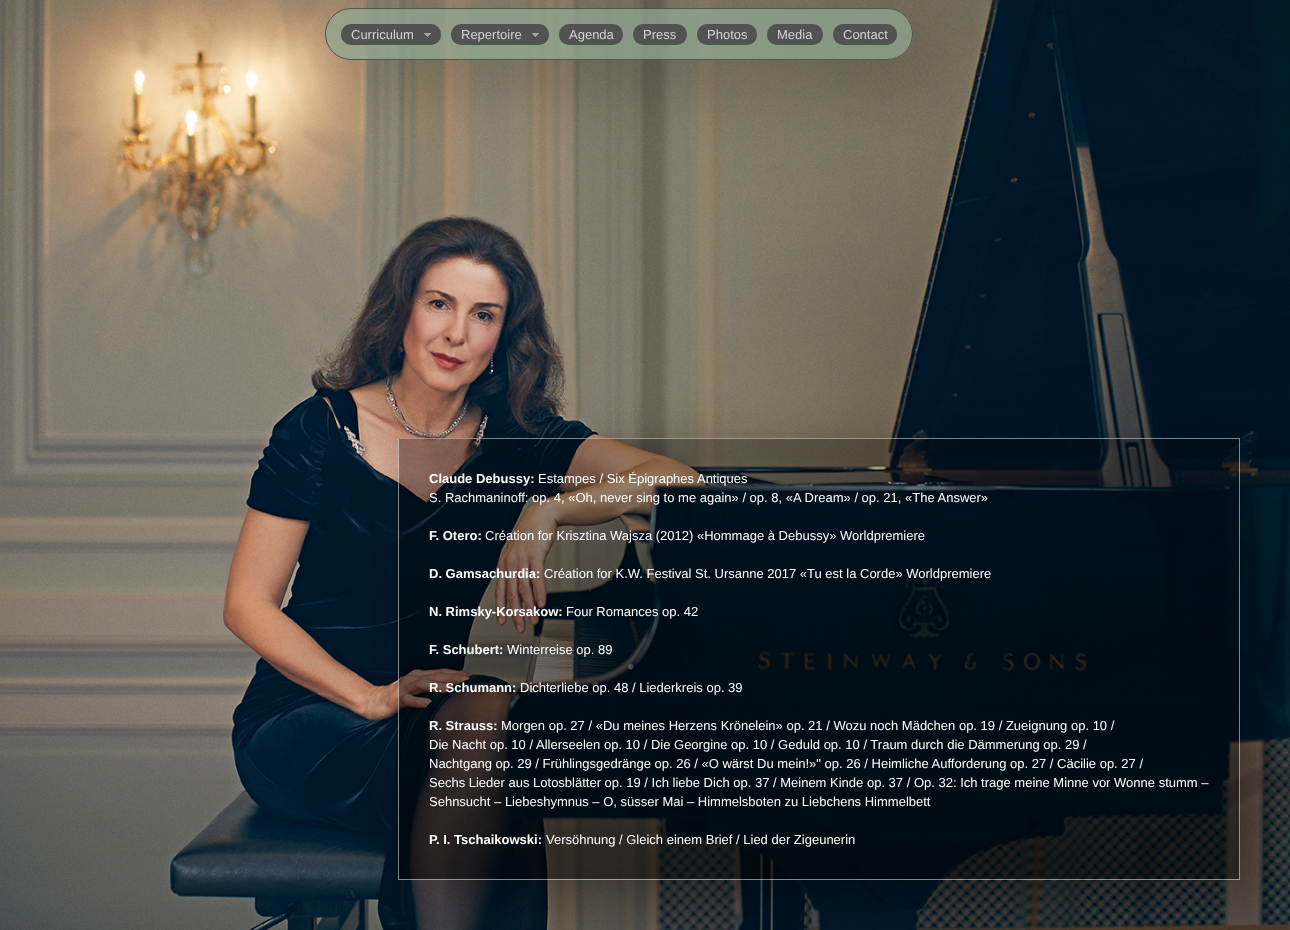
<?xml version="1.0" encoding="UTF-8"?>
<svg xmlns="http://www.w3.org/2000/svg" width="1290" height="930">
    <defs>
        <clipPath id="clip1"><path d="M 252 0 H 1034 V 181 H 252 Z M 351 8 H 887 C 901.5 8 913 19.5 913 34 C 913 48.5 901.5 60 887 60 H 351 C 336.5 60 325 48.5 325 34 C 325 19.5 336.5 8 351 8 Z" clip-rule="evenodd"/></clipPath>
        <filter id="blur1" x="-50%" y="-200%" width="200%" height="500%"><feGaussianBlur stdDeviation="32"/></filter>
        <clipPath id="clip2"><path d="M 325 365 H 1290 V 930 H 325 Z M 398 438 H 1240 V 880 H 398 Z" clip-rule="evenodd"/></clipPath>
    </defs>
    <rect width="100%" height="100%" fill="#FFFFFF"/>
    <image x="0" y="0" width="1290" height="930" href="img_01.png"/>
    <g clip-path="url(#clip1)">
        <rect x="349" y="32" width="588" height="52" rx="26" fill="#000000" fill-opacity="0.2" filter="url(#blur1)"/>
    </g>
    <image x="325" y="8" width="588" height="52" href="img_02.png"/>
    <rect x="325.5" y="8.5" width="587" height="51" rx="25.5" fill="none" stroke="#525252"/>
    <rect x="341" y="24" width="100" height="21" rx="10" fill="#525252"/>
    <image x="424" y="33" width="7" height="4" href="img_03.png"/>
    <text x="351" y="39" font-family="Liberation Sans" font-size="13" fill="#D3D3D3">Curriculum</text>
    <rect x="451" y="24" width="98" height="21" rx="10" fill="#525252"/>
    <image x="532" y="33" width="7" height="4" href="img_03.png"/>
    <text x="461" y="39" font-family="Liberation Sans" font-size="13" fill="#D3D3D3">Repertoire</text>
    <rect x="559" y="24" width="64" height="21" rx="10" fill="#525252"/>
    <text x="569" y="39" font-family="Liberation Sans" font-size="13" fill="#D3D3D3">Agenda</text>
    <rect x="633" y="24" width="54" height="21" rx="10" fill="#525252"/>
    <text x="643" y="39" font-family="Liberation Sans" font-size="13" fill="#D3D3D3">Press</text>
    <rect x="697" y="24" width="60" height="21" rx="10" fill="#525252"/>
    <text x="707" y="39" font-family="Liberation Sans" font-size="13" fill="#D3D3D3">Photos</text>
    <rect x="767" y="24" width="56" height="21" rx="10" fill="#525252"/>
    <text x="777" y="39" font-family="Liberation Sans" font-size="13" fill="#D3D3D3">Media</text>
    <rect x="833" y="24" width="64" height="21" rx="10" fill="#525252"/>
    <text x="843" y="39" font-family="Liberation Sans" font-size="13" fill="#D3D3D3">Contact</text>
    <g clip-path="url(#clip2)">
        <rect x="422" y="462" width="842" height="442" fill="#000000" fill-opacity="0.45" filter="url(#blur1)"/>
    </g>
    <rect x="398.5" y="438.5" width="841" height="441" fill="none" stroke="#FFFFFF" stroke-opacity="0.5"/>
    <text x="429" y="483" font-family="Liberation Sans" font-size="13" font-weight="700" fill="#FFFFFF">Claude Debussy:</text>
    <text x="538" y="483" font-family="Liberation Sans" font-size="13" fill="#FFFFFF">Estampes / Six Épigraphes Antiques</text>
    <text x="429" y="502" font-family="Liberation Sans" font-size="13" fill="#FFFFFF">S. Rachmaninoff: op. 4, «Oh, never sing to me again» / op. 8, «A Dream» / op. 21, «The Answer»</text>
    <text x="429" y="540" font-family="Liberation Sans" font-size="13" font-weight="700" fill="#FFFFFF">F. Otero:</text>
    <text x="485" y="540" font-family="Liberation Sans" font-size="13" fill="#FFFFFF">Création for Krisztina Wajsza (2012) «Hommage à Debussy» Worldpremiere</text>
    <text x="429" y="578" font-family="Liberation Sans" font-size="13" font-weight="700" fill="#FFFFFF">D. Gamsachurdia:</text>
    <text x="544" y="578" font-family="Liberation Sans" font-size="13" fill="#FFFFFF">Création for K.W. Festival St. Ursanne 2017 «Tu est la Corde» Worldpremiere</text>
    <text x="429" y="616" font-family="Liberation Sans" font-size="13" font-weight="700" fill="#FFFFFF">N. Rimsky-Korsakow:</text>
    <text x="566" y="616" font-family="Liberation Sans" font-size="13" fill="#FFFFFF">Four Romances op. 42</text>
    <text x="429" y="654" font-family="Liberation Sans" font-size="13" font-weight="700" fill="#FFFFFF">F. Schubert:</text>
    <text x="507" y="654" font-family="Liberation Sans" font-size="13" fill="#FFFFFF">Winterreise op. 89</text>
    <text x="429" y="692" font-family="Liberation Sans" font-size="13" font-weight="700" fill="#FFFFFF">R. Schumann:</text>
    <text x="520" y="692" font-family="Liberation Sans" font-size="13" fill="#FFFFFF">Dichterliebe op. 48 / Liederkreis op. 39</text>
    <text x="429" y="730" font-family="Liberation Sans" font-size="13" font-weight="700" fill="#FFFFFF">R. Strauss:</text>
    <text x="501" y="730" font-family="Liberation Sans" font-size="13" fill="#FFFFFF">Morgen op. 27 / «Du meines Herzens Krönelein» op. 21 / Wozu noch Mädchen op. 19 / Zueignung op. 10 /</text>
    <text x="429" y="749" font-family="Liberation Sans" font-size="13" fill="#FFFFFF">Die Nacht op. 10 /</text>
    <text x="536" y="749" font-family="Liberation Sans" font-size="13" fill="#FFFFFF">Allerseelen op. 10 / Die Georgine op. 10 / Geduld op. 10 / Traum durch die Dämmerung op. 29 /</text>
    <text font-family="Liberation Sans" font-size="13" fill="#FFFFFF">
        <tspan x="429" y="768">Nachtgang op. 29 / Frühlingsgedränge op. 26 / «O wärst Du mein!»" op. 26 / Heimliche Aufforderung op. 27 / Cäcilie op. 27 /</tspan>
        <tspan x="429" y="787">Sechs Lieder aus Lotosblätter op. 19 / Ich liebe Dich op. 37 / Meinem Kinde op. 37 / Op. 32: Ich trage meine Minne vor Wonne stumm –</tspan>
        <tspan x="429" y="806">Sehnsucht – Liebeshymnus – O, süsser Mai – Himmelsboten zu Liebchens Himmelbett</tspan>
    </text>
    <text x="429" y="844" font-family="Liberation Sans" font-size="13" font-weight="700" fill="#FFFFFF">P. I. Tschaikowski:</text>
    <text x="546" y="844" font-family="Liberation Sans" font-size="13" fill="#FFFFFF">Versöhnung / Gleich einem Brief / Lied der Zigeunerin</text>
</svg>
